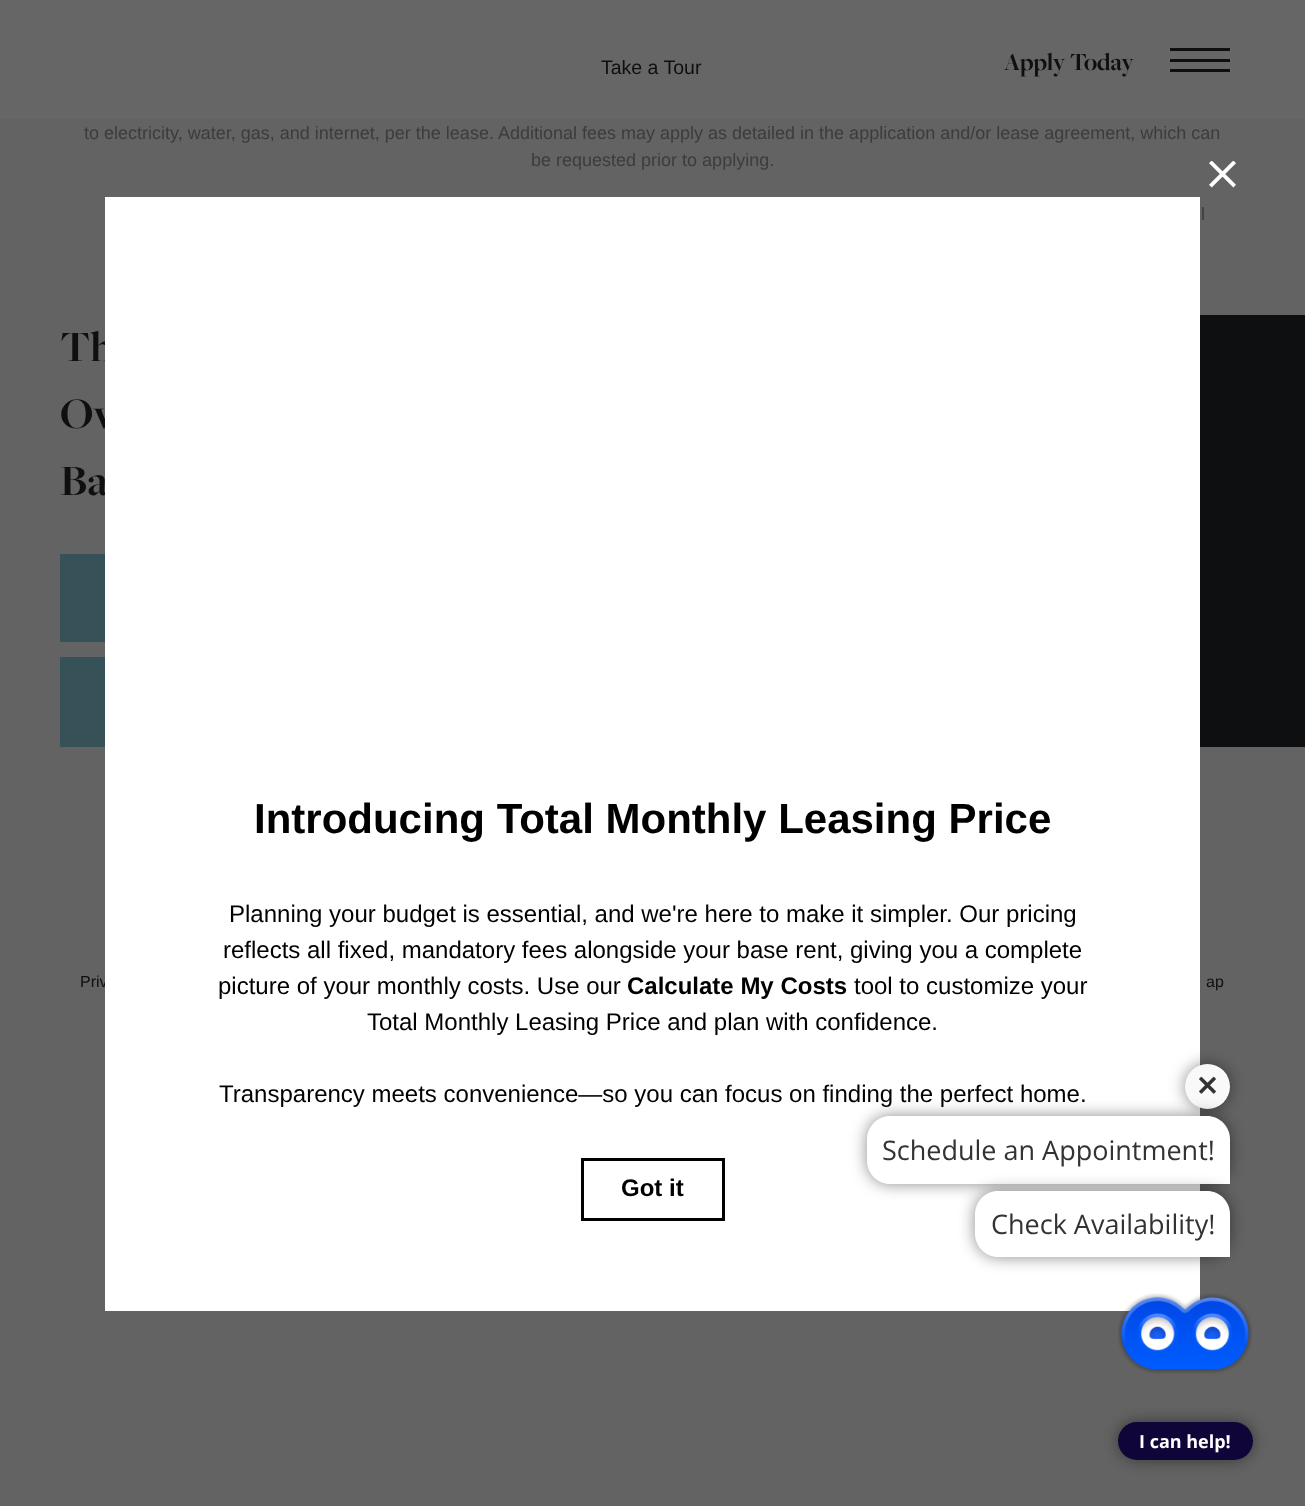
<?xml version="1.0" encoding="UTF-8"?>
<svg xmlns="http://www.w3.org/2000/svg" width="1305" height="1506">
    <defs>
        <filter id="blur1" x="-50%" y="-200%" width="200%" height="500%"><feGaussianBlur stdDeviation="8"/></filter>
    </defs>
    <rect width="100%" height="100%" fill="#636363"/>
    <rect x="0" y="0" width="1305" height="119" fill="#666666"/>
    <text x="601" y="74" font-family="Liberation Sans" font-size="19.5" fill="#0E0F10">Take a Tour</text>
    <text x="1004" y="70" font-family="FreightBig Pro" font-size="25.5" font-weight="700" fill="#0E0F10">Apply Today</text>
    <rect x="1170" y="48" width="60" height="3" fill="#0E0F10"/>
    <rect x="1170" y="59" width="60" height="3" fill="#0E0F10"/>
    <rect x="1170" y="69" width="60" height="3" fill="#0E0F10"/>
    <text x="84" y="139" font-family="Liberation Sans" font-size="18" fill="#3C3C3C">to electricity, water, gas, and internet, per the lease. Additional fees may apply as detailed in the application and/or lease agreement, which can</text>
    <text x="531" y="166" font-family="Liberation Sans" font-size="18" fill="#3C3C3C">be requested prior to applying.</text>
    <text x="1201" y="220" font-family="Liberation Sans" font-size="18" fill="#3C3C3C">l</text>
    <rect x="1200" y="315" width="105" height="432" fill="#0E0F10"/>
    <text font-family="FreightBig Pro" font-size="45" font-weight="700" fill="#0E0F10">
        <tspan x="60" y="361">Th</tspan>
        <tspan x="60" y="428">Ov</tspan>
        <tspan x="60" y="495">Ba</tspan>
    </text>
    <rect x="60" y="554" width="45" height="88" fill="#365258"/>
    <rect x="60" y="657" width="45" height="90" fill="#365258"/>
    <text x="80" y="987" font-family="Liberation Sans" font-size="16" fill="#0E0F10">Priv</text>
    <text x="1206" y="987" font-family="Liberation Sans" font-size="16" fill="#0E0F10">ap</text>
    <rect x="105" y="197" width="1095" height="1114" fill="#FFFFFF"/>
    <image x="1209" y="161" width="27" height="27" href="img_01.png"/>
    <text x="254" y="833" font-family="Liberation Sans" font-size="42" font-weight="700" fill="#000000">Introducing Total Monthly Leasing Price</text>
    <text x="229" y="922" font-family="Liberation Sans" font-size="24" fill="#000000">Planning your budget is essential, and we're here to make it simpler. Our pricing</text>
    <text x="223" y="958" font-family="Liberation Sans" font-size="24" fill="#000000">reflects all fixed, mandatory fees alongside your base rent, giving you a complete</text>
    <text x="218" y="994" font-family="Liberation Sans" font-size="24" fill="#000000">picture of your monthly costs. Use our</text>
    <text x="627" y="994" font-family="Liberation Sans" font-size="24" font-weight="700" fill="#000000">Calculate My Costs</text>
    <text x="854" y="994" font-family="Liberation Sans" font-size="24" fill="#000000">tool to customize your</text>
    <text x="367" y="1030" font-family="Liberation Sans" font-size="24" fill="#000000">Total Monthly Leasing Price and plan with confidence.</text>
    <text x="219" y="1102" font-family="Liberation Sans" font-size="24" fill="#000000">Transparency meets convenience—so you can focus on finding the perfect home.</text>
    <rect x="582.5" y="1159.5" width="141" height="60" fill="none" stroke="#000000" stroke-width="3"/>
    <text x="621" y="1196" font-family="Liberation Sans" font-size="24" font-weight="700" fill="#000000">Got it</text>
    <rect x="1185" y="1064" width="45" height="45" rx="22.5" fill="#000000" fill-opacity="0.45" filter="url(#blur1)"/>
    <circle cx="1207.5" cy="1086.5" r="22.5" fill="#F9F9F9"/>
    <image x="1199" y="1076" width="17" height="18" href="img_02.png"/>
    <rect x="867" y="1116" width="363" height="68" rx="23" fill="#000000" fill-opacity="0.45" filter="url(#blur1)"/>
    <path d="M 890 1116 H 1207 C 1219.5 1116 1230 1126.5 1230 1139 V 1184 H 890 C 877.5 1184 867 1173.5 867 1161 V 1139 C 867 1126.5 877.5 1116 890 1116 Z" fill="#FFFFFF"/>
    <text x="882" y="1160" font-family="Open Sans" font-size="27" fill="#333333">Schedule an Appointment!</text>
    <rect x="975" y="1191" width="255" height="66" rx="23" fill="#000000" fill-opacity="0.45" filter="url(#blur1)"/>
    <path d="M 998 1191 H 1207 C 1219.5 1191 1230 1201.5 1230 1214 V 1257 H 998 C 985.5 1257 975 1246.5 975 1234 V 1214 C 975 1201.5 985.5 1191 998 1191 Z" fill="#FFFFFF"/>
    <text x="991" y="1234" font-family="Open Sans" font-size="27" fill="#333333">Check Availability!</text>
    <image x="1118" y="1293" width="134" height="81" href="img_03.png"/>
    <rect x="1118" y="1422" width="135" height="38" rx="19" fill="#000000" fill-opacity="0.45" filter="url(#blur1)"/>
    <rect x="1118" y="1422" width="135" height="38" rx="19" fill="#0F0538"/>
    <text x="1139" y="1448" font-family="Open Sans" font-size="18" font-weight="700" fill="#FFFFFF">I can help!</text>
</svg>
